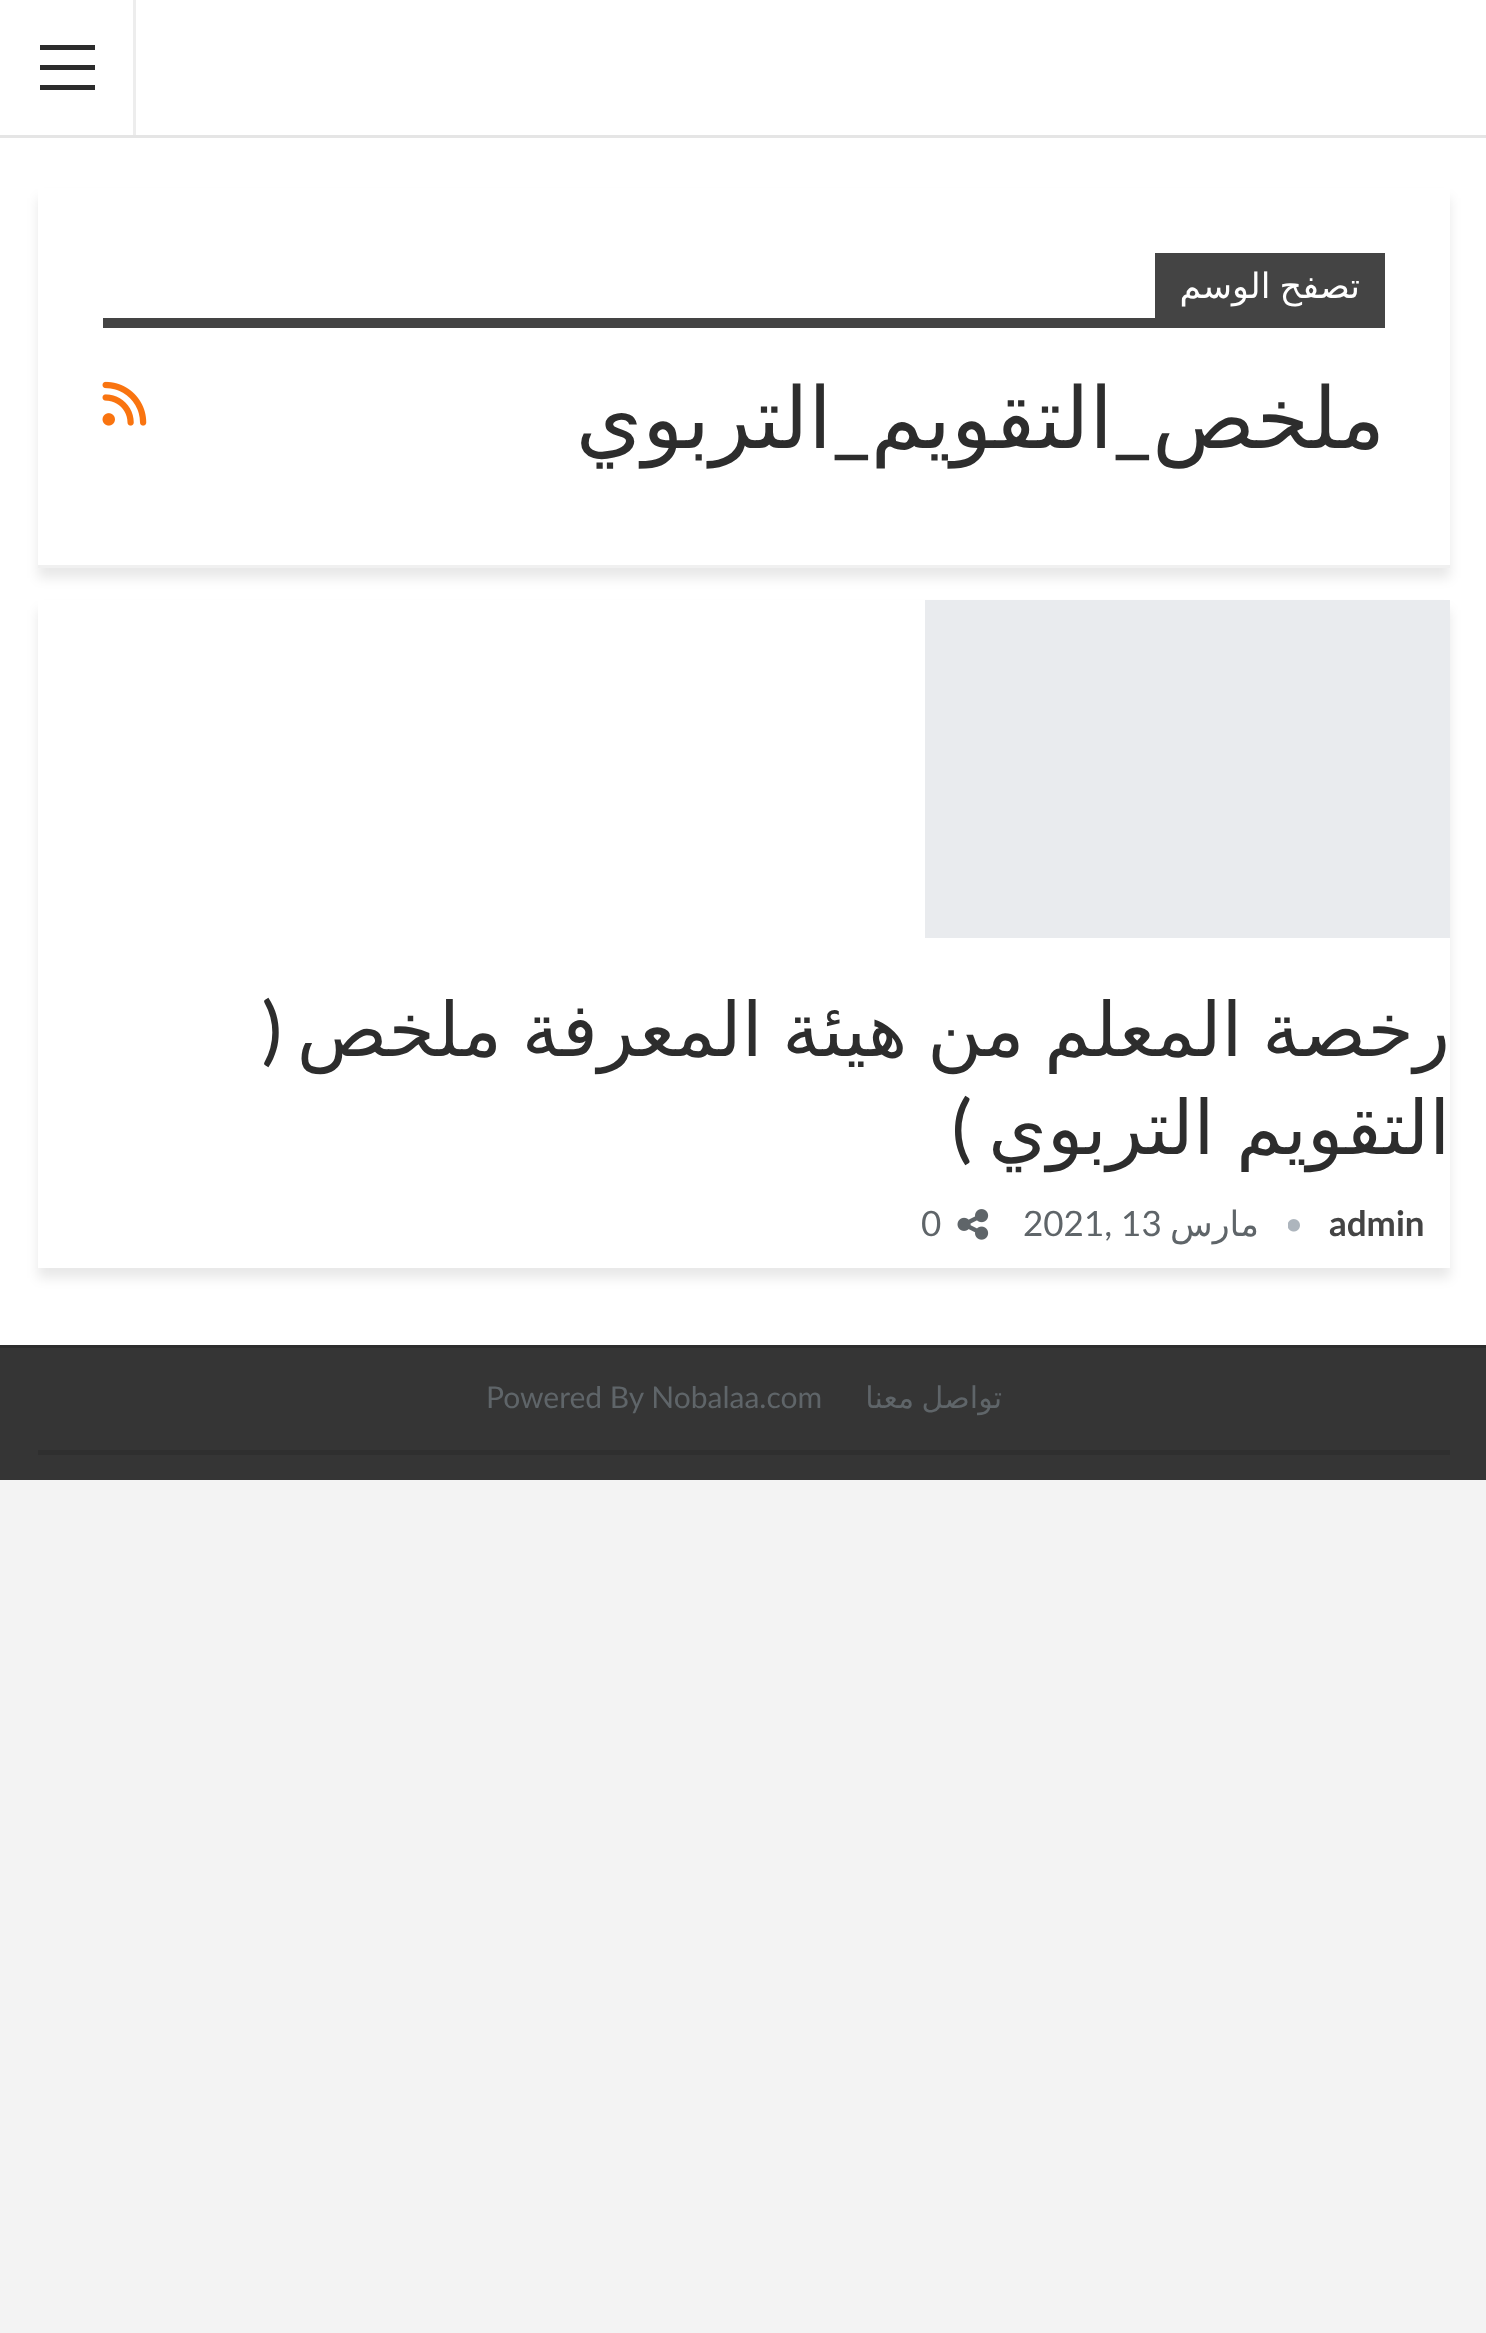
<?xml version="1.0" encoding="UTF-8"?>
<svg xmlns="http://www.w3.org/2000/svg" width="1486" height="2333">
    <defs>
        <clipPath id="clip1"><path d="M 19 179 H 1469 V 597 H 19 Z M 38 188 H 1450 V 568 H 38 Z" clip-rule="evenodd"/></clipPath>
        <filter id="blur1" x="-50%" y="-200%" width="200%" height="500%"><feGaussianBlur stdDeviation="6"/></filter>
        <clipPath id="clip2"><path d="M 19 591 H 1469 V 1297 H 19 Z M 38 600 H 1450 V 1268 H 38 Z" clip-rule="evenodd"/></clipPath>
    </defs>
    <rect width="100%" height="100%" fill="#F3F3F3"/>
    <rect x="0" y="0" width="1486" height="1345" fill="#FFFFFF"/>
    <rect x="0" y="135" width="1486" height="3" fill="#E5E5E5"/>
    <rect x="133" y="0" width="3" height="135" fill="#EDEDED"/>
    <rect x="40" y="65" width="55" height="5" fill="#2C2C2C"/>
    <rect x="40" y="45" width="55" height="5" fill="#2C2C2C"/>
    <rect x="40" y="85" width="55" height="5" fill="#2C2C2C"/>
    <g clip-path="url(#clip1)">
        <rect x="38" y="198" width="1412" height="380" fill="#000000" fill-opacity="0.09" filter="url(#blur1)"/>
    </g>
    <rect x="38" y="565" width="1412" height="3" fill="#F0F0F0"/>
    <rect x="1155" y="253" width="230" height="65" fill="#444444"/>
    <text x="1360" y="298" word-spacing="-2" font-family="DejaVu Sans" font-size="35" direction="rtl" fill="#FFFFFF">تصفح الوسم</text>
    <rect x="103" y="318" width="1282" height="10" fill="#444444"/>
    <text x="1385" y="448" font-family="DejaVu Sans" font-size="85" direction="rtl" fill="#2D2D2D">ملخص</text>
    <text x="1152" y="448" font-family="Lato" font-size="85" font-weight="500" direction="rtl" fill="#2D2D2D">_</text>
    <text x="1113" y="448" font-family="DejaVu Sans" font-size="85" direction="rtl" fill="#2D2D2D">التقويم</text>
    <text x="871" y="448" font-family="Lato" font-size="85" font-weight="500" direction="rtl" fill="#2D2D2D">_</text>
    <text x="832" y="448" font-family="DejaVu Sans" font-size="85" direction="rtl" fill="#2D2D2D">التربوي</text>
    <image x="102" y="381" width="45" height="45" href="img_01.png"/>
    <g clip-path="url(#clip2)">
        <rect x="38" y="610" width="1412" height="668" fill="#000000" fill-opacity="0.09" filter="url(#blur1)"/>
    </g>
    <rect x="925" y="600" width="525" height="338" fill="#E9EBEE"/>
    <text x="1450" y="1056" word-spacing="-4" font-family="DejaVu Sans" font-size="75" direction="rtl" fill="#2D2D2D">رخصة المعلم من هيئة المعرفة ملخص</text>
    <text x="282" y="1056" font-family="Lato" font-size="75" font-weight="500" direction="rtl" fill="#2D2D2D">(</text>
    <text x="1450" y="1154" word-spacing="-2" font-family="DejaVu Sans" font-size="75" direction="rtl" fill="#2D2D2D">التقويم التربوي</text>
    <text x="972" y="1154" font-family="Lato" font-size="75" font-weight="500" direction="rtl" fill="#2D2D2D">)</text>
    <text x="1329" y="1236" font-family="Lato" font-size="35" font-weight="700" fill="#444444">admin</text>
    <image x="1288" y="1219" width="12" height="13" href="img_02.png"/>
    <text x="1259" y="1236" font-family="DejaVu Sans" font-size="35" direction="rtl" fill="#5F6569">مارس</text>
    <text x="1023" y="1236" font-family="Lato" font-size="35" fill="#5F6569">2021, 13</text>
    <image x="957" y="1209" width="32" height="31" href="img_03.png"/>
    <text x="921" y="1236" font-family="Lato" font-size="35" fill="#5F6569">0</text>
    <rect x="0" y="1348" width="1486" height="132" fill="#353535"/>
    <rect x="0" y="1345" width="1486" height="3" fill="#2D2D2D"/>
    <rect x="38" y="1450" width="1412" height="5" fill="#2F2F2F"/>
    <text x="1002" y="1408" word-spacing="-2" font-family="DejaVu Sans" font-size="30" direction="rtl" fill="#5F6569">تواصل معنا</text>
    <text x="486" y="1408" font-family="Lato" font-size="30" fill="#5F6569">Powered By Nobalaa.com</text>
</svg>
